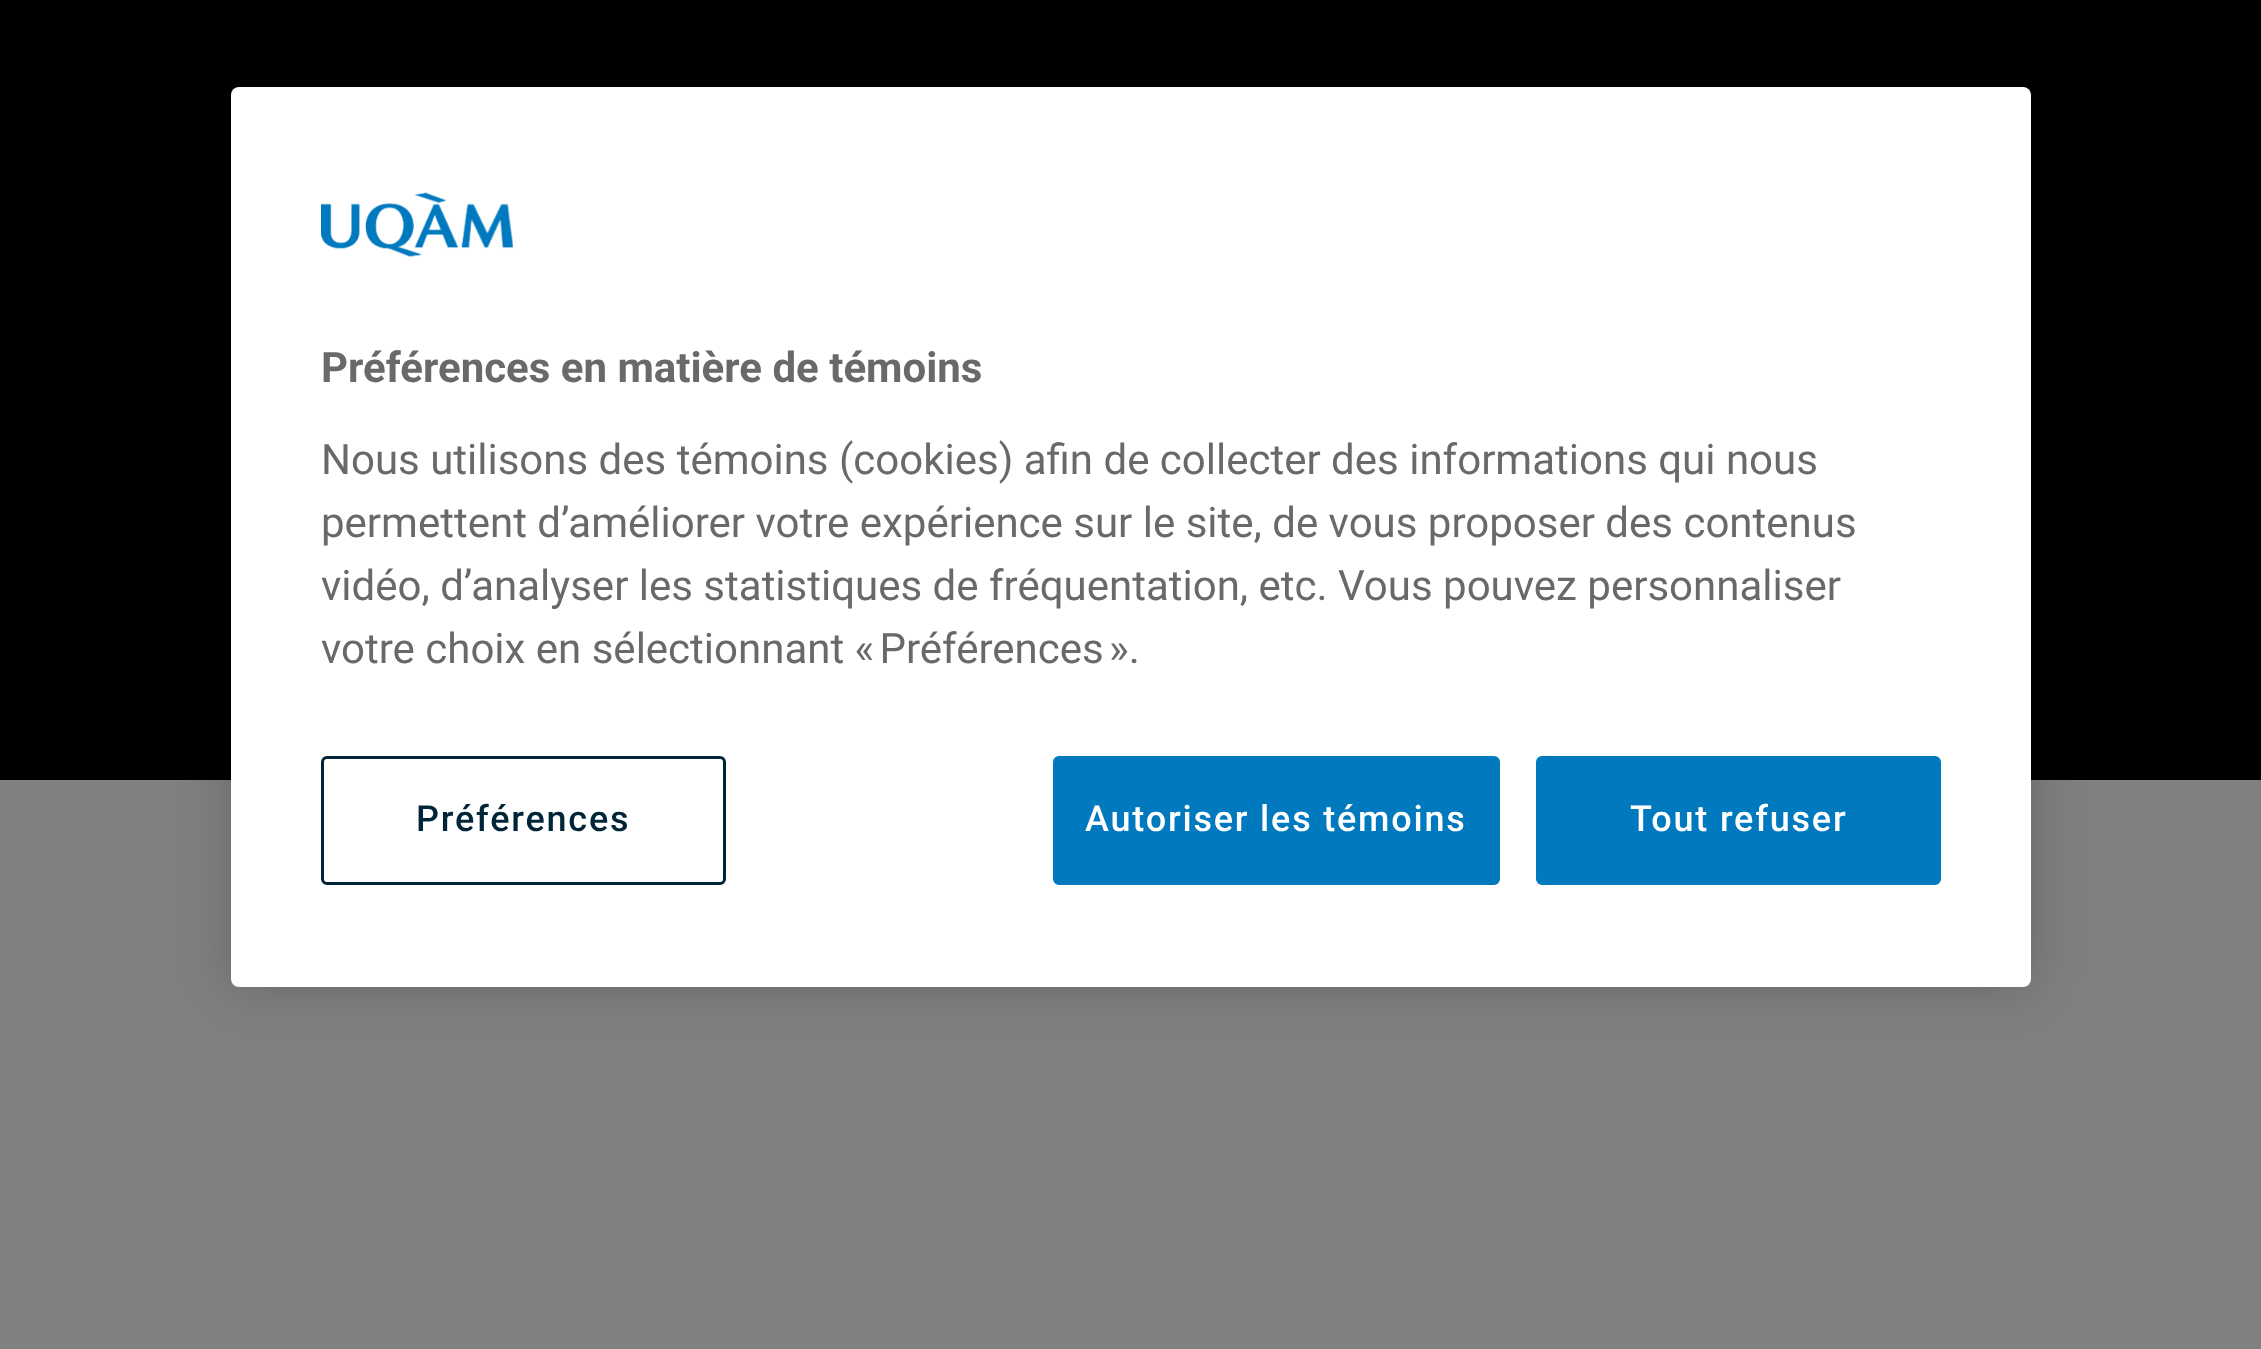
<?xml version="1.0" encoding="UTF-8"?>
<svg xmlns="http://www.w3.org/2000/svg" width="2261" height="1349">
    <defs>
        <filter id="blur1" x="-50%" y="-200%" width="200%" height="500%"><feGaussianBlur stdDeviation="27"/></filter>
    </defs>
    <rect width="100%" height="100%" fill="#808080"/>
    <rect x="0" y="0" width="2261" height="780" fill="#000000"/>
    <rect x="231" y="87" width="1800" height="900" rx="8" fill="#000000" fill-opacity="0.2" filter="url(#blur1)"/>
    <rect x="231" y="87" width="1800" height="900" rx="8" fill="#FFFFFF"/>
    <image x="321" y="192" width="192" height="65" href="img_01.png"/>
    <text x="321" y="382" font-family="Roboto" font-size="42" font-weight="700" fill="#696969">Préférences en matière de témoins</text>
    <text font-family="Roboto" font-size="42" fill="#696969">
        <tspan x="321" y="474">Nous utilisons des témoins (cookies) afin de collecter des informations qui nous</tspan>
        <tspan x="321" y="537">permettent d’améliorer votre expérience sur le site, de vous proposer des contenus</tspan>
        <tspan x="321" y="600">vidéo, d’analyser les statistiques de fréquentation, etc. Vous pouvez personnaliser</tspan>
        <tspan x="321" y="663">votre choix en sélectionnant « Préférences ».</tspan>
    </text>
    <rect x="322.5" y="757.5" width="402" height="126" rx="4.5" fill="none" stroke="#002539" stroke-width="3"/>
    <text x="416" y="831" font-family="Roboto" font-size="36" font-weight="500" letter-spacing="1.8" fill="#002539">Préférences</text>
    <rect x="1054.5" y="757.5" width="444" height="126" rx="4.5" fill="#0079BE" stroke="#0079BE" stroke-width="3"/>
    <text x="1085" y="831" font-family="Roboto" font-size="36" font-weight="500" letter-spacing="1.8" fill="#FFFFFF">Autoriser les témoins</text>
    <rect x="1537.5" y="757.5" width="402" height="126" rx="4.5" fill="#0079BE" stroke="#0079BE" stroke-width="3"/>
    <text x="1630" y="831" font-family="Roboto" font-size="36" font-weight="500" letter-spacing="1.8" fill="#FFFFFF">Tout refuser</text>
</svg>
